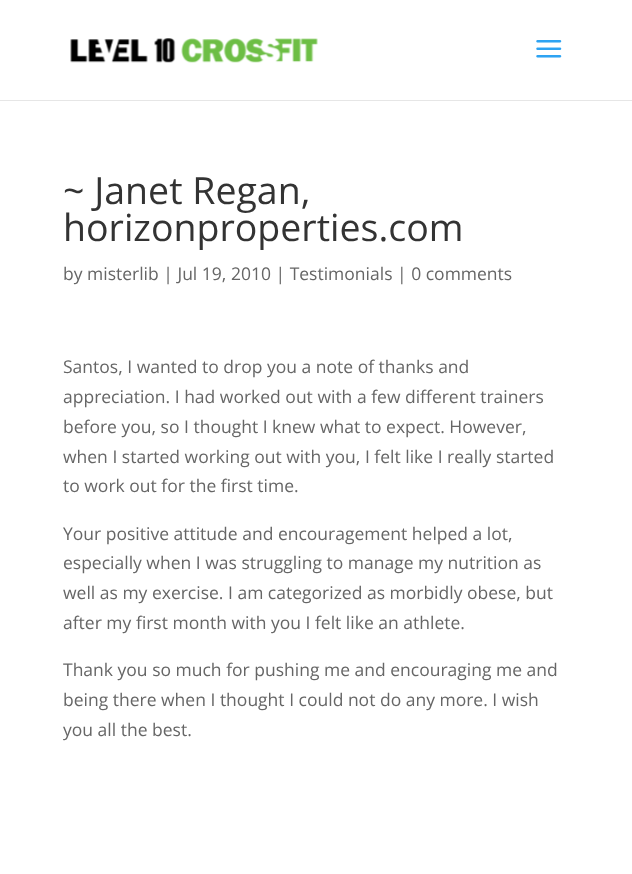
<?xml version="1.0" encoding="UTF-8"?>
<svg xmlns="http://www.w3.org/2000/svg" width="632" height="874">
    <rect width="100%" height="100%" fill="#FFFFFF"/>
    <path d="M 0 100 V 101 H 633 V 1 H 632 V 100 Z" fill="#E6E6E6"/>
    <image x="70" y="38" width="248" height="25" href="img_01.png"/>
    <image x="536" y="40" width="26" height="18" href="img_02.png"/>
    <text font-family="Open Sans" font-size="37.5" fill="#333333">
        <tspan x="63" y="204">~ Janet Regan,</tspan>
        <tspan x="63" y="241">horizonproperties.com</tspan>
    </text>
    <text x="63" y="280" font-family="Open Sans" font-size="17.5" fill="#666666">by misterlib | Jul 19, 2010 | Testimonials | 0 comments</text>
    <text font-family="Open Sans" font-size="17.5" fill="#666666">
        <tspan x="63" y="373">Santos, I wanted to drop you a note of thanks and</tspan>
        <tspan x="63" y="403">appreciation. I had worked out with a few different trainers</tspan>
        <tspan x="63" y="433">before you, so I thought I knew what to expect. However,</tspan>
        <tspan x="63" y="463">when I started working out with you, I felt like I really started</tspan>
        <tspan x="63" y="492">to work out for the first time.</tspan>
    </text>
    <text font-family="Open Sans" font-size="17.5" fill="#666666">
        <tspan x="63" y="540">Your positive attitude and encouragement helped a lot,</tspan>
        <tspan x="63" y="569">especially when I was struggling to manage my nutrition as</tspan>
        <tspan x="63" y="599">well as my exercise. I am categorized as morbidly obese, but</tspan>
        <tspan x="63" y="629">after my first month with you I felt like an athlete.</tspan>
    </text>
    <text font-family="Open Sans" font-size="17.5" fill="#666666">
        <tspan x="63" y="676">Thank you so much for pushing me and encouraging me and</tspan>
        <tspan x="63" y="706">being there when I thought I could not do any more. I wish</tspan>
        <tspan x="63" y="736">you all the best.</tspan>
    </text>
</svg>
